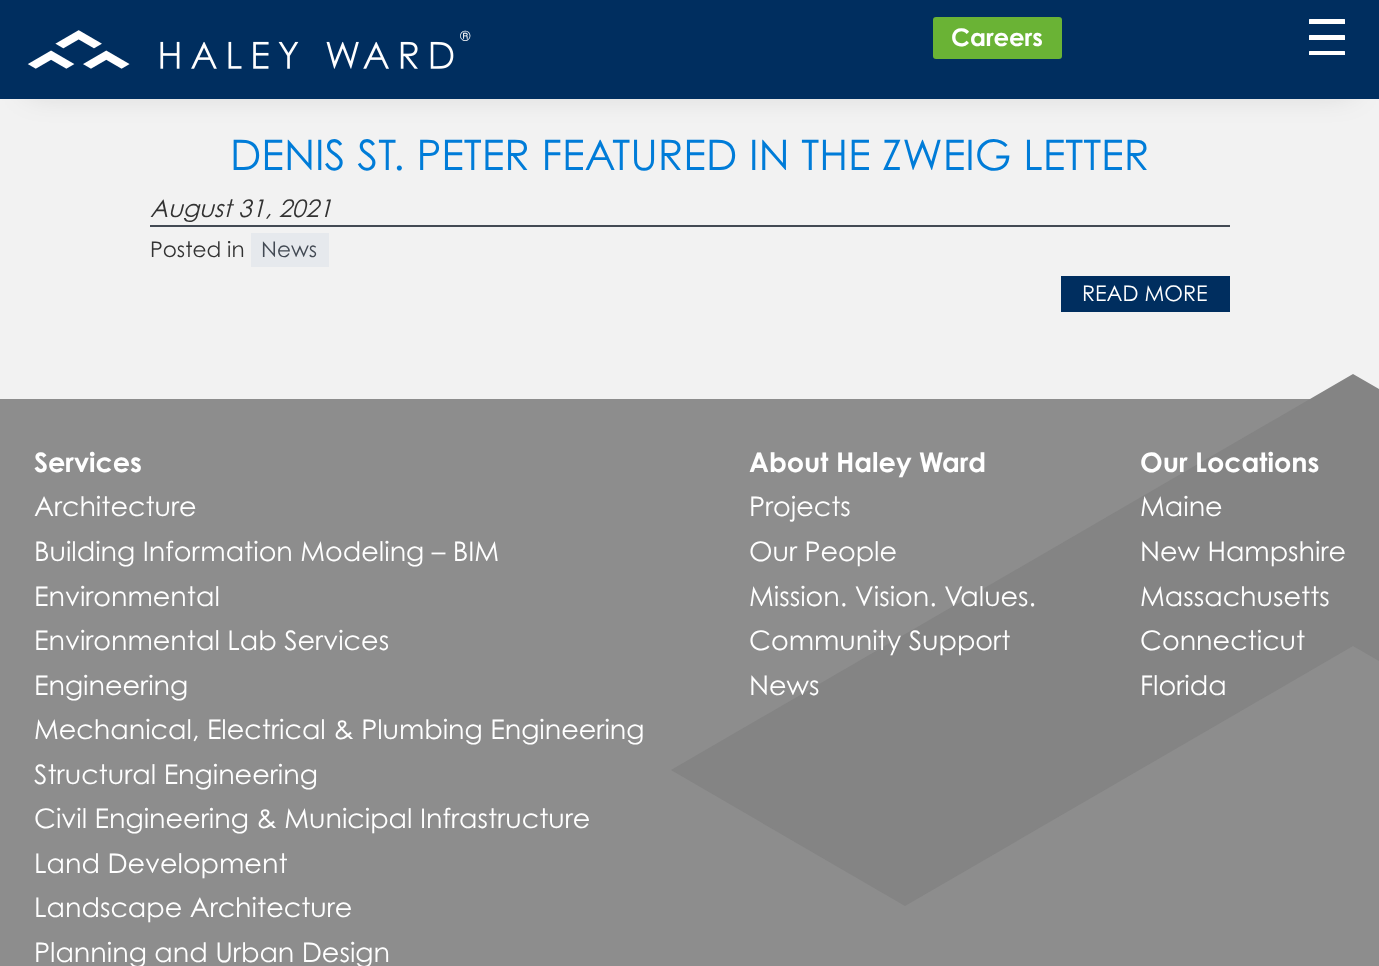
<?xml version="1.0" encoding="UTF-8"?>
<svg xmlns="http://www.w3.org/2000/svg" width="1379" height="966">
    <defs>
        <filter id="blur1" x="-50%" y="-200%" width="200%" height="500%"><feGaussianBlur stdDeviation="16"/></filter>
    </defs>
    <rect width="100%" height="100%" fill="#F2F2F2"/>
    <rect x="29" y="48" width="1323" height="42" fill="#000000" fill-opacity="0.17" filter="url(#blur1)"/>
    <rect x="0" y="0" width="1379" height="99" fill="#002E5F"/>
    <image x="27" y="30" width="427" height="39" href="img_01.png"/>
    <text x="460" y="41" font-family="Century Gothic" font-size="14" fill="#FFFFFF">®</text>
    <rect x="933" y="17" width="129" height="42" rx="3" fill="#6AB335"/>
    <text x="951" y="46" font-family="Century Gothic" font-size="24.25" font-weight="700" fill="#FFFFFF">Careers</text>
    <rect x="1309" y="35" width="36" height="5" rx="0.5" fill="#FFFFFF"/>
    <rect x="1309" y="19" width="36" height="5" rx="0.5" fill="#FFFFFF"/>
    <rect x="1309" y="51" width="36" height="4" rx="0.5" fill="#FFFFFF"/>
    <rect x="150" y="225" width="1080" height="2" fill="#434A54"/>
    <text x="230" y="170" font-family="Century Gothic" font-size="42.1" fill="#007CD8">DENIS ST. PETER FEATURED IN THE ZWEIG LETTER</text>
    <text x="150" y="217" font-family="Century Gothic" font-size="24.25" font-style="italic" fill="#333333">August 31, 2021</text>
    <text x="150" y="257" font-family="Century Gothic" font-size="21.5" fill="#333333">Posted in</text>
    <rect x="251" y="233" width="78" height="34" fill="#E6E9ED"/>
    <text x="261" y="257" font-family="Century Gothic" font-size="21.5" fill="#434A54">News</text>
    <rect x="1061" y="276" width="169" height="36" fill="#002E5F"/>
    <text x="1082" y="301" font-family="Century Gothic" font-size="21.5" fill="#FFFFFF">READ MORE</text>
    <rect x="0" y="399" width="1379" height="567" fill="#8D8D8D"/>
    <path d="M 1353 646 L 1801 906 L 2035 770 L 1353 374 L 671 770 L 905 906 Z" fill="#848484"/>
    <text x="34" y="472" font-family="Century Gothic" font-size="27" font-weight="700" fill="#FFFFFF">Services</text>
    <text font-family="Century Gothic" font-size="27" fill="#FFFFFF">
        <tspan x="34" y="516">Architecture</tspan>
        <tspan x="34" y="561">Building Information Modeling – BIM</tspan>
        <tspan x="34" y="606">Environmental</tspan>
        <tspan x="34" y="650">Environmental Lab Services</tspan>
        <tspan x="34" y="695">Engineering</tspan>
        <tspan x="34" y="739">Mechanical, Electrical &amp; Plumbing Engineering</tspan>
        <tspan x="34" y="784">Structural Engineering</tspan>
        <tspan x="34" y="828">Civil Engineering &amp; Municipal Infrastructure</tspan>
        <tspan x="34" y="873">Land Development</tspan>
        <tspan x="34" y="917">Landscape Architecture</tspan>
        <tspan x="34" y="962">Planning and Urban Design</tspan>
    </text>
    <text x="749" y="472" font-family="Century Gothic" font-size="27" font-weight="700" fill="#FFFFFF">About Haley Ward</text>
    <text font-family="Century Gothic" font-size="27" fill="#FFFFFF">
        <tspan x="749" y="516">Projects</tspan>
        <tspan x="749" y="561">Our People</tspan>
        <tspan x="749" y="606">Mission. Vision. Values.</tspan>
        <tspan x="749" y="650">Community Support</tspan>
        <tspan x="749" y="695">News</tspan>
    </text>
    <text x="1140" y="472" font-family="Century Gothic" font-size="27" font-weight="700" fill="#FFFFFF">Our Locations</text>
    <text font-family="Century Gothic" font-size="27" fill="#FFFFFF">
        <tspan x="1140" y="516">Maine</tspan>
        <tspan x="1140" y="561">New Hampshire</tspan>
        <tspan x="1140" y="606">Massachusetts</tspan>
        <tspan x="1140" y="650">Connecticut</tspan>
        <tspan x="1140" y="695">Florida</tspan>
    </text>
</svg>
